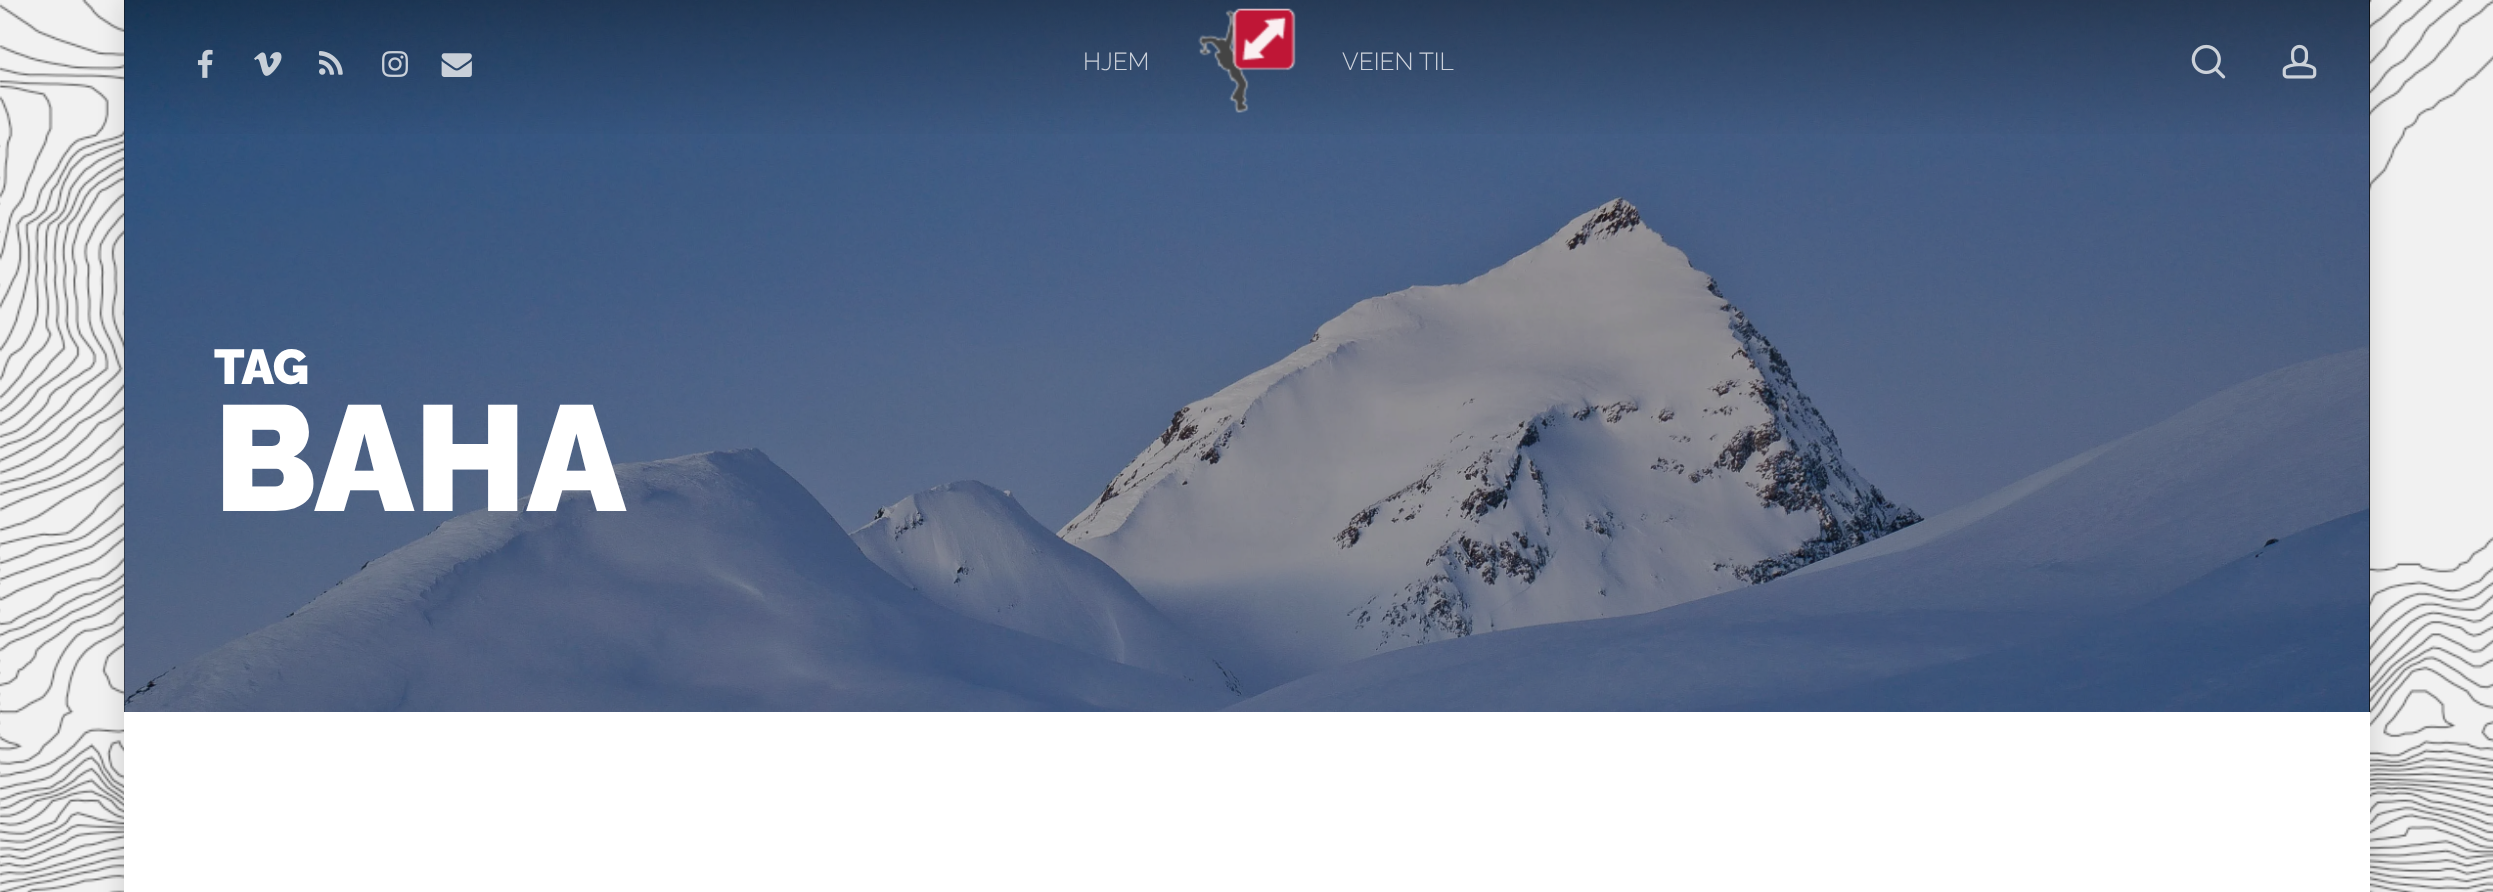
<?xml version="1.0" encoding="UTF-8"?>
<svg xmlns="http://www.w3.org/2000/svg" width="2493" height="892">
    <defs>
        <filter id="blur1" x="-50%" y="-200%" width="200%" height="500%"><feGaussianBlur stdDeviation="13"/></filter>
        <linearGradient id="g1" gradientUnits="userSpaceOnUse" x1="1247" y1="147" x2="1247" y2="0"><stop offset="0" stop-color="#FFFFFF" stop-opacity="0"/><stop offset="0.01" stop-color="#000000" stop-opacity="0"/><stop offset="0.16" stop-color="#000000" stop-opacity="0.04"/><stop offset="0.75" stop-color="#000000" stop-opacity="0.23"/><stop offset="1" stop-color="#000000" stop-opacity="0.33"/></linearGradient>
    </defs>
    <rect width="100%" height="100%" fill="#F1F1F1"/>
    <image x="0" y="0" width="2493" height="892" href="img_01.png"/>
    <rect x="124" y="0" width="2246" height="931" fill="#000000" fill-opacity="0.15" filter="url(#blur1)"/>
    <rect x="124" y="0" width="2246" height="712" fill="#000000"/>
    <image x="124" y="0" width="2246" height="712" href="img_10.png"/>
    <rect x="124" y="0" width="2246" height="712" fill="#191919" fill-opacity="0.35"/>
    <rect x="124" y="0" width="2246" height="134" fill="url(#g1)"/>
    <image x="1198" y="8" width="98" height="105" href="img_02.png"/>
    <image x="197" y="49" width="16" height="29" href="img_03.png"/>
    <image x="254" y="52" width="28" height="24" href="img_04.png"/>
    <image x="319" y="51" width="24" height="24" href="img_05.png"/>
    <image x="382" y="51" width="26" height="26" href="img_06.png"/>
    <image x="441" y="53" width="31" height="24" href="img_07.png"/>
    <text x="1083" y="70" font-family="Raleway" font-size="24.5" font-weight="300" fill="#CCD1DA">HJEM</text>
    <text x="1342" y="70" font-family="Raleway" font-size="24.5" font-weight="300" fill="#CCD1DA">VEIEN TIL</text>
    <image x="2191" y="44" width="35" height="35" href="img_08.png"/>
    <image x="2282" y="44" width="35" height="35" href="img_09.png"/>
    <text x="214" y="384" font-family="Raleway" font-size="49" font-weight="900" fill="#FFFFFF">TAG</text>
    <text x="214" y="511" font-family="Raleway" font-size="149.5" font-weight="900" fill="#FFFFFF">BAHA</text>
    <rect x="124" y="712" width="2246" height="180" fill="#FFFFFF"/>
</svg>
